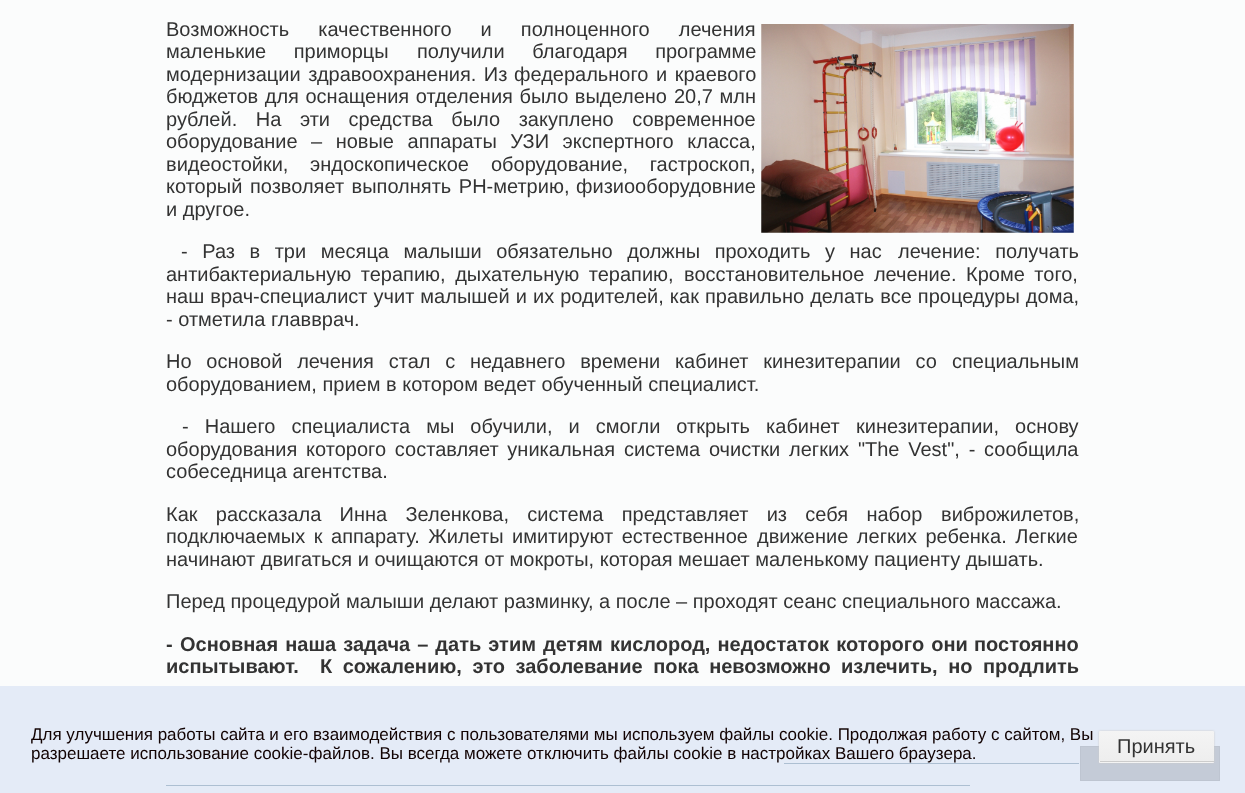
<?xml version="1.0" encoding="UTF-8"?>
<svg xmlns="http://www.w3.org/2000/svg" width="1245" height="793">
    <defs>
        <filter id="blur1" x="-50%" y="-200%" width="200%" height="500%"><feGaussianBlur stdDeviation="1"/></filter>
        <linearGradient id="g1" gradientUnits="userSpaceOnUse" x1="1156" y1="731" x2="1156" y2="761"><stop offset="0" stop-color="#F4F4F4"/><stop offset="1" stop-color="#EEEEEE"/></linearGradient>
        <linearGradient id="g2" gradientUnits="userSpaceOnUse" x1="1156" y1="761" x2="1156" y2="791"><stop offset="0" stop-color="#F4F4F4"/><stop offset="1" stop-color="#EEEEEE"/></linearGradient>
    </defs>
    <rect width="100%" height="100%" fill="#FBFCFC"/>
    <text x="166" y="36" word-spacing="23.5" font-family="Liberation Sans" font-size="20" fill="#333333">Возможность качественного и полноценного лечения</text>
    <image x="761" y="24" width="313" height="209" href="img_01.png"/>
    <text x="166" y="58" word-spacing="22" font-family="Liberation Sans" font-size="20" fill="#333333">маленькие приморцы</text>
    <text x="417" y="58" word-spacing="22" font-family="Liberation Sans" font-size="20" fill="#333333">получили благодаря программе</text>
    <text x="166" y="81" word-spacing="2" font-family="Liberation Sans" font-size="20" fill="#333333">модернизации здравоохранения. Из</text>
    <text x="514" y="81" word-spacing="2" font-family="Liberation Sans" font-size="20" fill="#333333">федерального и краевого</text>
    <text x="166" y="103" word-spacing="1" font-family="Liberation Sans" font-size="20" fill="#333333">бюджетов для оснащения отделения было выделено</text>
    <text x="674" y="103" word-spacing="1" font-family="Liberation Sans" font-size="20" fill="#333333">20,7 млн</text>
    <text font-family="Liberation Sans" font-size="20" fill="#333333">
        <tspan x="166" y="126" word-spacing="13">рублей. На эти средства было закуплено современное</tspan>
        <tspan x="166" y="148">оборудование</tspan>
    </text>
    <text x="311" y="148" word-spacing="8" font-family="Liberation Sans" font-size="20" fill="#333333">– новые аппараты УЗИ экспертного класса,</text>
    <text x="166" y="171" word-spacing="16" font-family="Liberation Sans" font-size="20" fill="#333333">видеостойки, эндоскопическое</text>
    <text x="491" y="171" word-spacing="16" font-family="Liberation Sans" font-size="20" fill="#333333">оборудование, гастроскоп,</text>
    <text x="166" y="193" word-spacing="2" font-family="Liberation Sans" font-size="20" fill="#333333">который позволяет выполнять PH-метрию,</text>
    <text x="576" y="193" font-family="Liberation Sans" font-size="20" fill="#333333">физиооборудовние</text>
    <text x="166" y="216" font-family="Liberation Sans" font-size="20" fill="#333333">и другое.</text>
    <text x="181" y="258" word-spacing="9" font-family="Liberation Sans" font-size="20" fill="#333333">- Раз в три месяца малыши обязательно должны проходить у нас</text>
    <text x="898" y="258" word-spacing="9" font-family="Liberation Sans" font-size="20" fill="#333333">лечение: получать</text>
    <text x="166" y="281" word-spacing="4" font-family="Liberation Sans" font-size="20" fill="#333333">антибактериальную терапию, дыхательную терапию,</text>
    <text x="684" y="281" word-spacing="4" font-family="Liberation Sans" font-size="20" fill="#333333">восстановительное лечение. Кроме того,</text>
    <text x="166" y="303" word-spacing="0.5" font-family="Liberation Sans" font-size="20" fill="#333333">наш врач-специалист учит малышей и</text>
    <text x="533" y="303" word-spacing="0.5" font-family="Liberation Sans" font-size="20" fill="#333333">их родителей, как правильно делать все процедуры дома,</text>
    <text x="166" y="326" font-family="Liberation Sans" font-size="20" fill="#333333">- отметила главврач.</text>
    <text x="166" y="368" word-spacing="9.25" font-family="Liberation Sans" font-size="20" fill="#333333">Но основой лечения стал с недавнего времени кабинет кинезитерапии со</text>
    <text x="952" y="368" font-family="Liberation Sans" font-size="20" fill="#333333">специальным</text>
    <text x="166" y="391" font-family="Liberation Sans" font-size="20" fill="#333333">оборудованием, прием в котором ведет обученный специалист.</text>
    <text x="182" y="433" word-spacing="10.5" font-family="Liberation Sans" font-size="20" fill="#333333">- Нашего специалиста мы обучили, и смогли открыть кабинет</text>
    <text x="856" y="433" word-spacing="10.5" font-family="Liberation Sans" font-size="20" fill="#333333">кинезитерапии, основу</text>
    <text x="166" y="456" word-spacing="3.25" font-family="Liberation Sans" font-size="20" fill="#333333">оборудования которого составляет уникальная</text>
    <text x="624" y="456" word-spacing="3.25" font-family="Liberation Sans" font-size="20" fill="#333333">система очистки легких "The Vest", - сообщила</text>
    <text x="166" y="478" font-family="Liberation Sans" font-size="20" fill="#333333">собеседница агентства.</text>
    <text x="166" y="521" word-spacing="12.75" font-family="Liberation Sans" font-size="20" fill="#333333">Как рассказала Инна Зеленкова, система представляет из себя набор</text>
    <text x="941" y="521" font-family="Liberation Sans" font-size="20" fill="#333333">виброжилетов,</text>
    <text x="166" y="543" word-spacing="3" font-family="Liberation Sans" font-size="20" fill="#333333">подключаемых к аппарату. Жилеты имитируют естественное</text>
    <text x="757" y="543" word-spacing="3" font-family="Liberation Sans" font-size="20" fill="#333333">движение легких ребенка. Легкие</text>
    <text x="166" y="566" font-family="Liberation Sans" font-size="20" fill="#333333">начинают двигаться и очищаются от мокроты, которая мешает маленькому пациенту дышать.</text>
    <text x="166" y="608" font-family="Liberation Sans" font-size="20" fill="#333333">Перед процедурой малыши делают разминку, а после – проходят сеанс специального массажа.</text>
    <text x="166" y="651" font-family="Liberation Sans" font-size="20" font-weight="700" fill="#333333">-</text>
    <text x="180" y="651" word-spacing="1.5" font-family="Liberation Sans" font-size="20" font-weight="700" fill="#333333">Основная наша задача – дать этим детям кислород, недостаток которого они</text>
    <text x="974" y="651" font-family="Liberation Sans" font-size="20" font-weight="700" fill="#333333">постоянно</text>
    <text x="166" y="673" word-spacing="5" font-family="Liberation Sans" font-size="20" font-weight="700" fill="#333333" xml:space="preserve">испытывают.  К сожалению, это заболевание пока невозможно</text>
    <text x="841" y="673" word-spacing="5" font-family="Liberation Sans" font-size="20" font-weight="700" fill="#333333">излечить, но продлить</text>
    <rect x="784" y="763" width="295" height="1" fill="#214C69"/>
    <rect x="166" y="785" width="804" height="1" fill="#214C69"/>
    <rect x="1080.5" y="746.5" width="139" height="34" fill="#7E7E7E" stroke="#666666"/>
    <rect x="0" y="686" width="1245" height="107" fill="#DCE6F5" fill-opacity="0.75"/>
    <text font-family="Liberation Sans" font-size="17" fill="#120303">
        <tspan x="31" y="740">Для улучшения работы сайта и его взаимодействия с пользователями мы используем файлы cookie. Продолжая работу с сайтом, Вы</tspan>
        <tspan x="31" y="759">разрешаете использование cookie-файлов. Вы всегда можете отключить файлы cookie в настройках Вашего браузера.</tspan>
    </text>
    <rect x="1099" y="731" width="115" height="32" rx="1" fill="#CCCCCC" filter="url(#blur1)"/>
    <path d="M 1100 731 H 1213 C 1213.5 731 1214 731.5 1214 732 V 761 H 1099 V 732 C 1099 731.5 1099.5 731 1100 731 Z" fill="url(#g1)"/>
    <path d="M 1099 761 H 1214 V 762 C 1214 762.5 1213.5 763 1213 763 H 1100 C 1099.5 763 1099 762.5 1099 762 Z" fill="url(#g2)"/>
    <rect x="1100" y="761" width="114" height="1" fill="#CCCCCC"/>
    <text x="1117" y="753" font-family="Liberation Sans" font-size="20" fill="#333333">Принять</text>
</svg>
